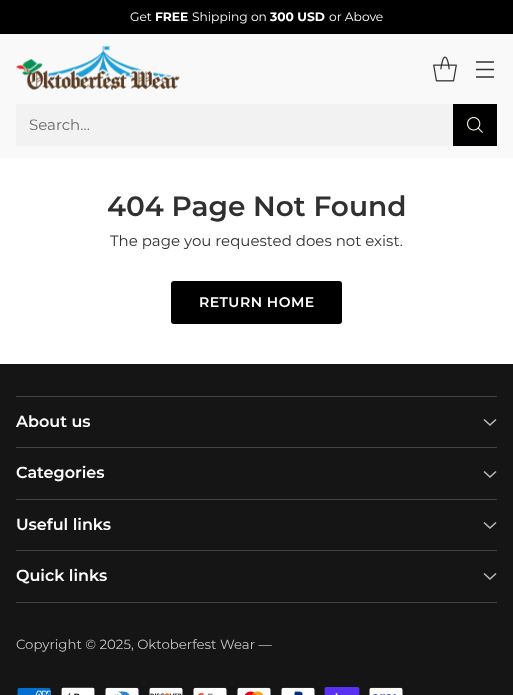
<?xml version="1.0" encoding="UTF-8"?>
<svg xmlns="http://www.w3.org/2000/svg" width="513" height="695">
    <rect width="100%" height="100%" fill="#FFFFFF"/>
    <rect x="0" y="0" width="513" height="34" fill="#000000"/>
    <text x="130" y="21" font-family="Montserrat" font-size="12.25" fill="#FFFFFF">Get</text>
    <text x="155" y="21" font-family="Montserrat" font-size="12.25" font-weight="700" fill="#FFFFFF">FREE</text>
    <text x="192" y="21" font-family="Montserrat" font-size="12.25" fill="#FFFFFF">Shipping on</text>
    <text x="270" y="21" font-family="Montserrat" font-size="12.25" font-weight="700" fill="#FFFFFF">300 USD</text>
    <text x="329" y="21" font-family="Montserrat" font-size="12.25" fill="#FFFFFF">or Above</text>
    <rect x="0" y="34" width="513" height="124" fill="#F9F9F9"/>
    <image x="16" y="46" width="164" height="45" href="img_01.png"/>
    <image x="433" y="56" width="24" height="26" href="img_02.png"/>
    <path d="M 476 69.5 H 494 M 476 62 H 494 M 476 77 H 494" fill="none" stroke="#303030" stroke-width="1.3"/>
    <rect x="16.5" y="104.5" width="480" height="41" fill="none" stroke="#F2F2F2"/>
    <rect x="17" y="105" width="436" height="40" fill="#F2F2F2"/>
    <text x="29" y="130" font-family="Montserrat" font-size="15" fill="#6A6A6A">Search…</text>
    <rect x="453" y="104" width="44" height="42" fill="#000000"/>
    <image x="467" y="117" width="16" height="16" href="img_03.png"/>
    <text x="107" y="216" font-family="Montserrat" font-size="28" font-weight="600" fill="#303030">404 Page Not Found</text>
    <text x="110" y="246" font-family="Montserrat" font-size="15" fill="#303030">The page you requested does not exist.</text>
    <rect x="171" y="281" width="171" height="43" rx="3" fill="#000000"/>
    <text x="199" y="307" font-family="Montserrat" font-size="14" font-weight="600" letter-spacing="0.5" fill="#FFFFFF">RETURN HOME</text>
    <rect x="0" y="364" width="513" height="331" fill="#151515"/>
    <rect x="16" y="396" width="481" height="1" fill="#444444"/>
    <rect x="16" y="447" width="481" height="1" fill="#444444"/>
    <text x="16" y="427" font-family="Montserrat" font-size="16" font-weight="600" fill="#FFFFFF">About us</text>
    <path d="M 484 419.5 L 490 425 L 496 419.5 M 484 471.5 L 490 477 L 496 471.5" fill="none" stroke="#B9B9B9" stroke-width="1.6"/>
    <rect x="16" y="499" width="481" height="1" fill="#444444"/>
    <text x="16" y="478" font-family="Montserrat" font-size="16" font-weight="600" fill="#FFFFFF">Categories</text>
    <rect x="16" y="550" width="481" height="1" fill="#444444"/>
    <text x="16" y="530" font-family="Montserrat" font-size="16" font-weight="600" fill="#FFFFFF">Useful links</text>
    <path d="M 484 522.5 L 490 528 L 496 522.5 M 484 573.5 L 490 579 L 496 573.5" fill="none" stroke="#B9B9B9" stroke-width="1.6"/>
    <rect x="16" y="602" width="481" height="1" fill="#444444"/>
    <text x="16" y="581" font-family="Montserrat" font-size="16" font-weight="600" fill="#FFFFFF">Quick links</text>
    <text x="16" y="649" font-family="Montserrat" font-size="13.3" fill="#C5C5C5">Copyright © 2025, Oktoberfest Wear —</text>
    <image x="17" y="687" width="34" height="8" href="img_04.png"/>
    <image x="61" y="687" width="34" height="8" href="img_05.png"/>
    <image x="105" y="687" width="34" height="8" href="img_06.png"/>
    <image x="149" y="687" width="34" height="8" href="img_07.png"/>
    <image x="193" y="687" width="34" height="8" href="img_08.png"/>
    <image x="237" y="687" width="34" height="8" href="img_09.png"/>
    <image x="281" y="687" width="34" height="8" href="img_10.png"/>
    <image x="324" y="687" width="36" height="8" href="img_11.png"/>
    <image x="369" y="687" width="34" height="8" href="img_12.png"/>
</svg>
